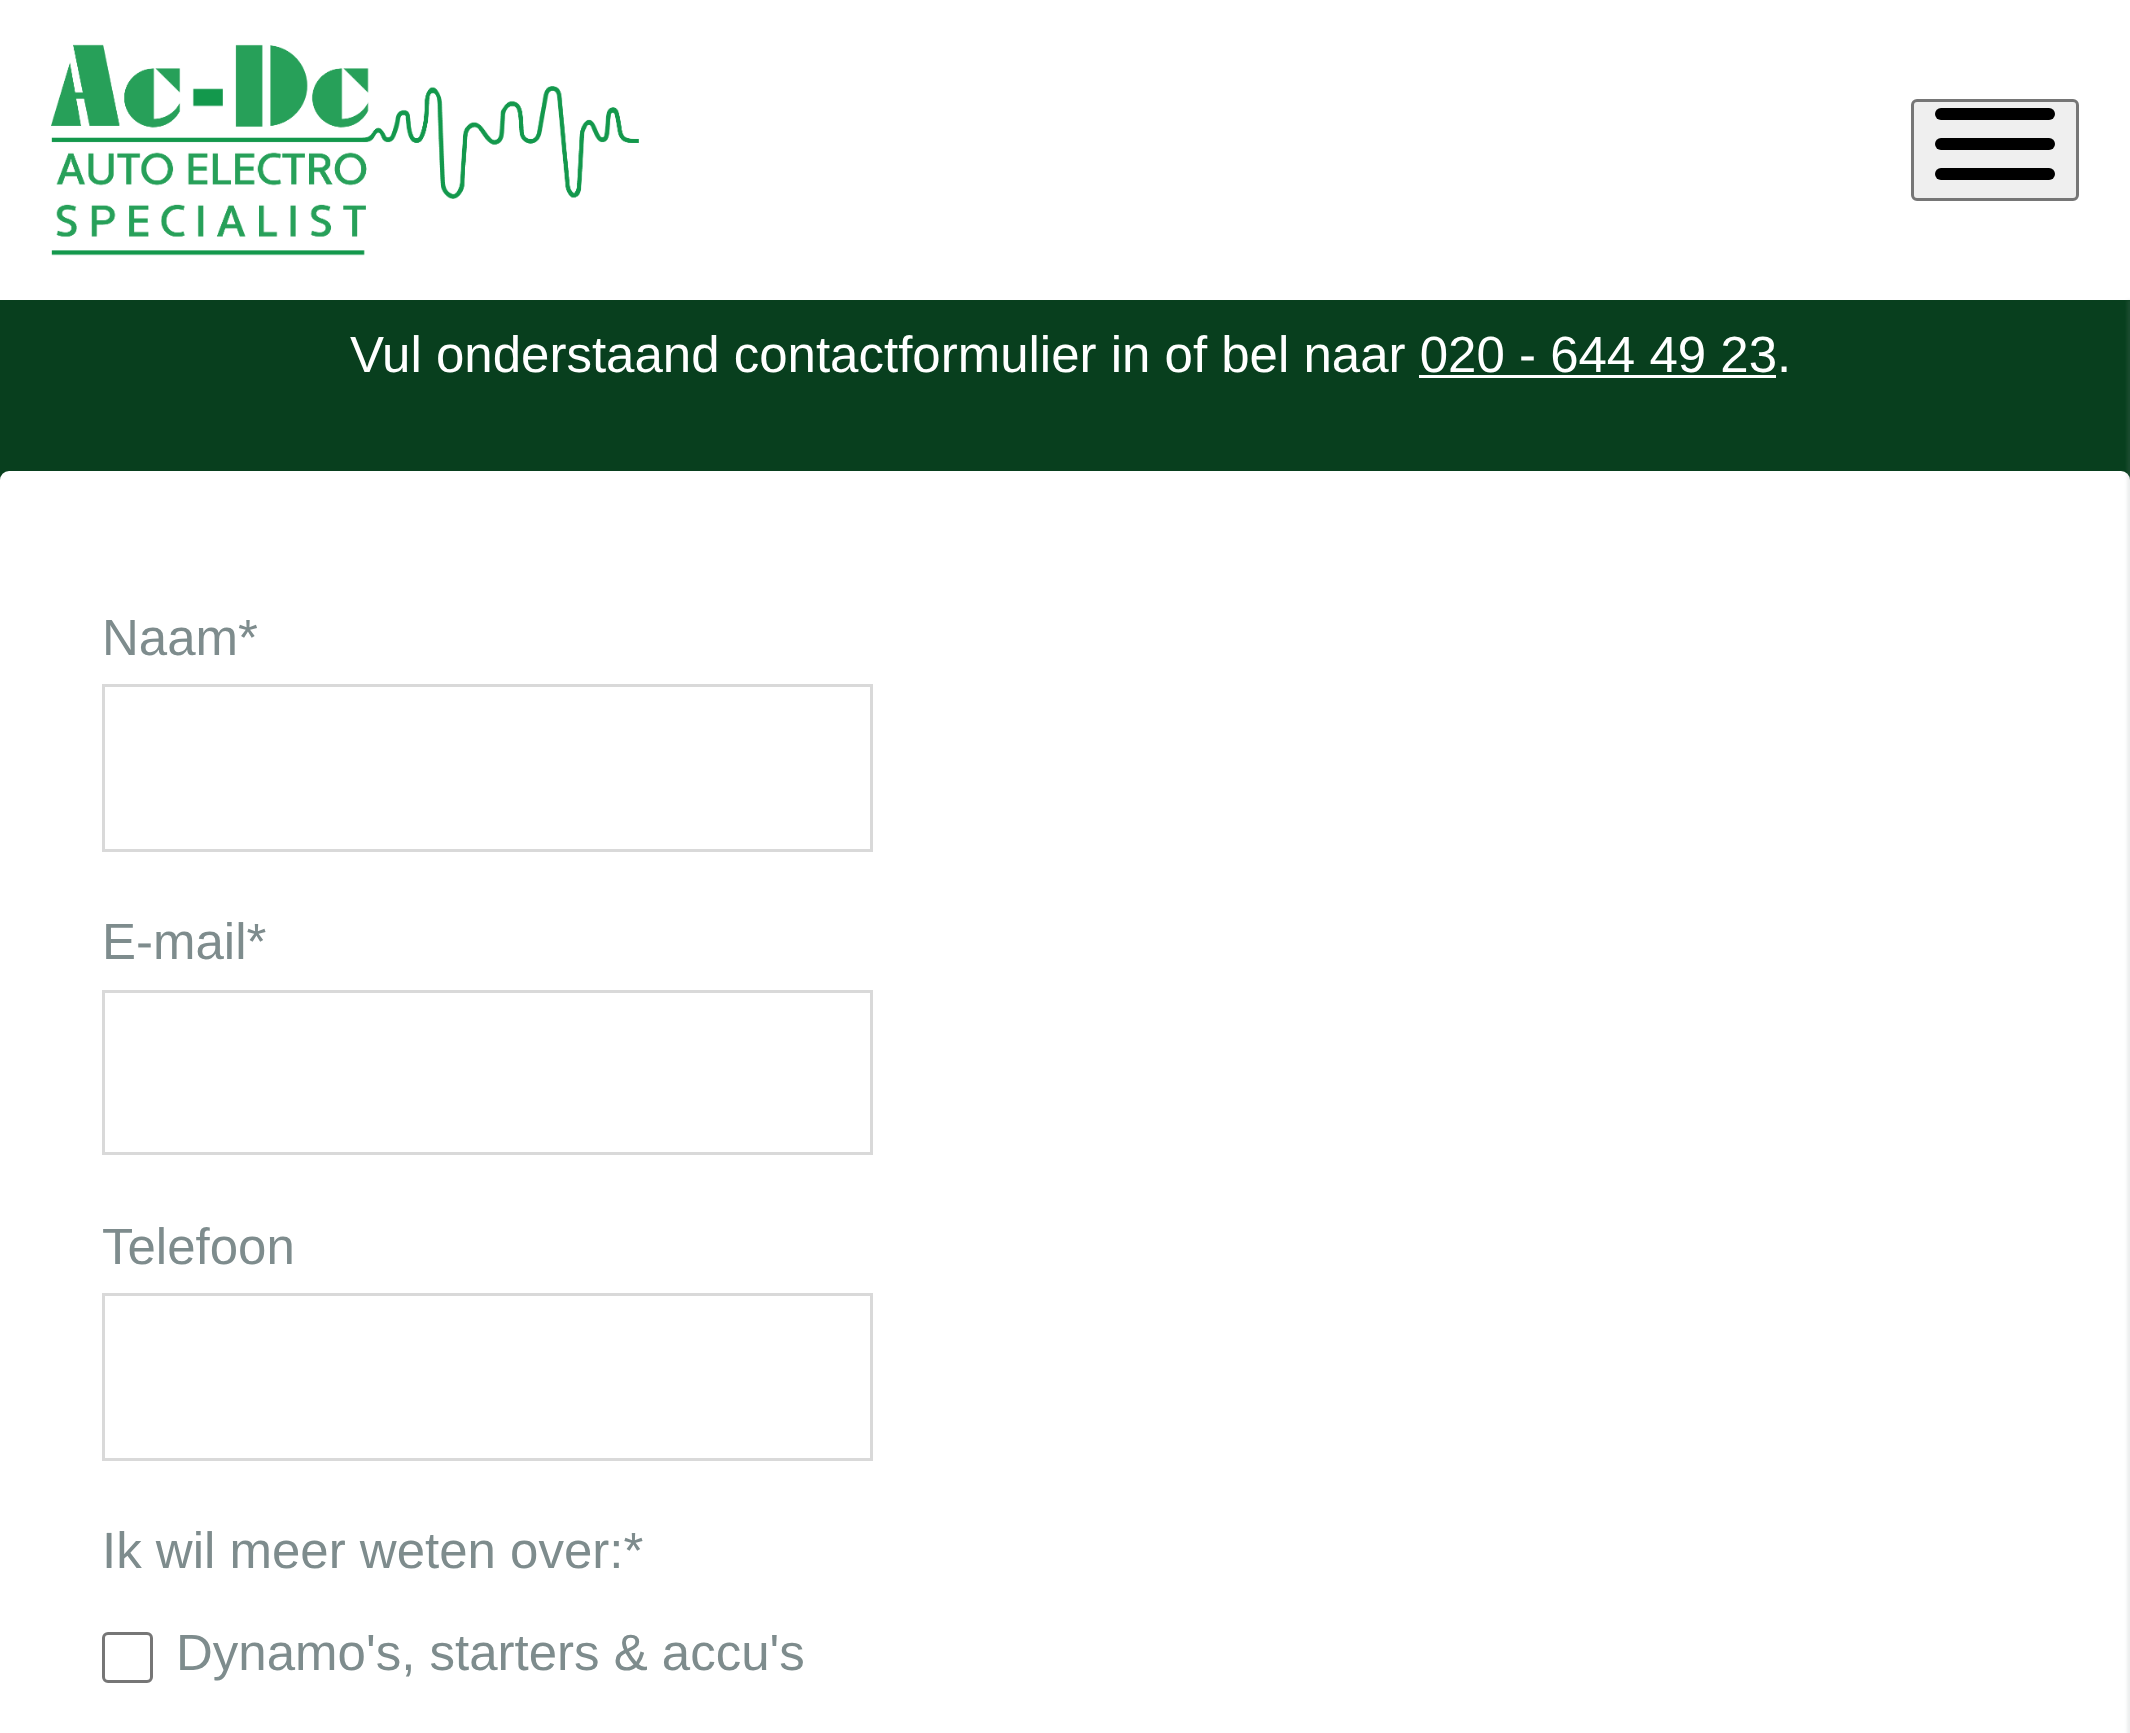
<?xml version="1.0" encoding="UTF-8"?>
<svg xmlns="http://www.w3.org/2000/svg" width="2130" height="1733">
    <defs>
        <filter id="blur1" x="-50%" y="-200%" width="200%" height="500%"><feGaussianBlur stdDeviation="1.5"/></filter>
    </defs>
    <rect width="100%" height="100%" fill="#083F1E"/>
    <rect x="0" y="0" width="2130" height="300" fill="#FFFFFF"/>
    <image x="51" y="44" width="588" height="212" href="img_01.png"/>
    <rect x="1912.5" y="100.5" width="165" height="99" rx="4.5" fill="#EFEFEF" stroke="#767676" stroke-width="3"/>
    <rect x="1935" y="138" width="120" height="12" rx="6" fill="#000000"/>
    <rect x="1935" y="108" width="120" height="12" rx="6" fill="#000000"/>
    <rect x="1935" y="168" width="120" height="12" rx="6" fill="#000000"/>
    <text x="350" y="372" font-family="Liberation Sans" font-size="51" fill="#FFFFFF">Vul onderstaand contactformulier in of bel naar 020 - 644 49 23.</text>
    <rect x="1419" y="375" width="357" height="3" fill="#FFFFFF"/>
    <rect x="0" y="471" width="2130" height="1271" rx="9" fill="#FFFFFF"/>
    <text x="102" y="655" font-family="Liberation Sans" font-size="51" fill="#7E8C8D">Naam*</text>
    <rect x="103.5" y="685.5" width="768" height="165" fill="none" stroke="#D9D9D9" stroke-width="3"/>
    <text x="102" y="959" font-family="Liberation Sans" font-size="51" fill="#7E8C8D">E-mail*</text>
    <rect x="103.5" y="991.5" width="768" height="162" fill="none" stroke="#D9D9D9" stroke-width="3"/>
    <text x="102" y="1264" font-family="Liberation Sans" font-size="51" fill="#7E8C8D">Telefoon</text>
    <rect x="103.5" y="1294.5" width="768" height="165" fill="none" stroke="#D9D9D9" stroke-width="3"/>
    <text x="102" y="1568" font-family="Liberation Sans" font-size="51" fill="#7E8C8D">Ik wil meer weten over:*</text>
    <rect x="103.5" y="1633.5" width="48" height="48" rx="4.5" fill="none" stroke="#767676" stroke-width="3"/>
    <text x="176" y="1670" font-family="Liberation Sans" font-size="51" fill="#7E8C8D">Dynamo's, starters &amp; accu's</text>
    <rect x="2127" y="300" width="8" height="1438" fill="#7D8B8C" fill-opacity="0.15" filter="url(#blur1)"/>
</svg>
